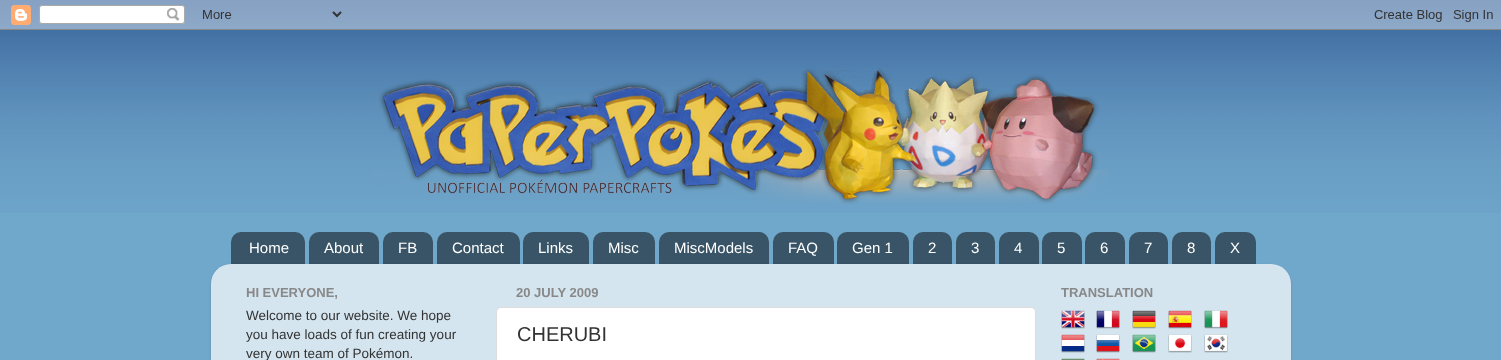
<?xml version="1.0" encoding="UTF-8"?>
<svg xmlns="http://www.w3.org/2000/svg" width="1501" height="360">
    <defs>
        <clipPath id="clip1"><path d="M 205 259 H 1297 V 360 H 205 Z M 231 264 H 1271 C 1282 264 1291 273 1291 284 V 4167 H 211 V 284 C 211 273 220 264 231 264 Z" clip-rule="evenodd"/></clipPath>
        <filter id="blur1" x="-50%" y="-200%" width="200%" height="500%"><feGaussianBlur stdDeviation="1.5"/></filter>
    </defs>
    <rect width="100%" height="100%" fill="#70A8CC"/>
    <image x="0" y="0" width="1501" height="213" href="img_01.png"/>
    <image x="0" y="0" width="1501" height="30" href="img_02.png"/>
    <image x="371" y="68" width="737" height="143" href="img_03.png"/>
    <image x="231" y="232" width="74" height="32" href="img_04.png"/>
    <text x="249" y="253" font-family="Liberation Sans" font-size="15" fill="#FFFFFF">Home</text>
    <image x="309" y="232" width="70" height="32" href="img_05.png"/>
    <text x="324" y="253" font-family="Liberation Sans" font-size="15" fill="#FFFFFF">About</text>
    <image x="383" y="232" width="50" height="32" href="img_06.png"/>
    <text x="398" y="253" font-family="Liberation Sans" font-size="15" fill="#FFFFFF">FB</text>
    <image x="437" y="232" width="83" height="32" href="img_07.png"/>
    <text x="452" y="253" font-family="Liberation Sans" font-size="15" fill="#FFFFFF">Contact</text>
    <image x="523" y="232" width="66" height="32" href="img_08.png"/>
    <text x="538" y="253" font-family="Liberation Sans" font-size="15" fill="#FFFFFF">Links</text>
    <image x="593" y="232" width="62" height="32" href="img_09.png"/>
    <text x="608" y="253" font-family="Liberation Sans" font-size="15" fill="#FFFFFF">Misc</text>
    <image x="659" y="232" width="110" height="32" href="img_10.png"/>
    <text x="674" y="253" font-family="Liberation Sans" font-size="15" fill="#FFFFFF">MiscModels</text>
    <image x="773" y="232" width="61" height="32" href="img_11.png"/>
    <text x="788" y="253" font-family="Liberation Sans" font-size="15" fill="#FFFFFF">FAQ</text>
    <image x="837" y="232" width="72" height="32" href="img_12.png"/>
    <text x="852" y="253" font-family="Liberation Sans" font-size="15" fill="#FFFFFF">Gen 1</text>
    <image x="913" y="232" width="39" height="32" href="img_13.png"/>
    <text x="928" y="253" font-family="Liberation Sans" font-size="15" fill="#FFFFFF">2</text>
    <image x="956" y="232" width="39" height="32" href="img_14.png"/>
    <text x="971" y="253" font-family="Liberation Sans" font-size="15" fill="#FFFFFF">3</text>
    <image x="999" y="232" width="40" height="32" href="img_15.png"/>
    <text x="1014" y="253" font-family="Liberation Sans" font-size="15" fill="#FFFFFF">4</text>
    <image x="1042" y="232" width="40" height="32" href="img_16.png"/>
    <text x="1057" y="253" font-family="Liberation Sans" font-size="15" fill="#FFFFFF">5</text>
    <image x="1085" y="232" width="40" height="32" href="img_15.png"/>
    <text x="1100" y="253" font-family="Liberation Sans" font-size="15" fill="#FFFFFF">6</text>
    <image x="1129" y="232" width="39" height="32" href="img_13.png"/>
    <text x="1144" y="253" font-family="Liberation Sans" font-size="15" fill="#FFFFFF">7</text>
    <image x="1172" y="232" width="39" height="32" href="img_14.png"/>
    <text x="1187" y="253" font-family="Liberation Sans" font-size="15" fill="#FFFFFF">8</text>
    <image x="1215" y="232" width="41" height="32" href="img_17.png"/>
    <text x="1230" y="253" font-family="Liberation Sans" font-size="15" fill="#FFFFFF">X</text>
    <g clip-path="url(#clip1)">
        <rect x="211" y="265" width="1080" height="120" rx="20" fill="#000000" fill-opacity="0.15" filter="url(#blur1)"/>
    </g>
    <image x="211" y="264" width="1080" height="96" href="img_18.png"/>
    <text x="246" y="297" font-family="Liberation Sans" font-size="13" font-weight="700" fill="#888888">HI EVERYONE,</text>
    <text font-family="Liberation Sans" font-size="13.5" fill="#333333">
        <tspan x="246" y="320">Welcome to our website. We hope</tspan>
        <tspan x="246" y="339">you have loads of fun creating your</tspan>
        <tspan x="246" y="358">very own team of Pokémon.</tspan>
    </text>
    <text x="516" y="297" font-family="Liberation Sans" font-size="13" font-weight="700" fill="#888888">20 JULY 2009</text>
    <rect x="496.5" y="307.5" width="539" height="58" rx="4.5" fill="#FFFFFF" stroke="#DDDDDD"/>
    <text x="517" y="341" font-family="Arimo" font-size="20" fill="#333333">CHERUBI</text>
    <text x="1061" y="297" font-family="Liberation Sans" font-size="13" font-weight="700" fill="#888888">TRANSLATION</text>
    <image x="1061" y="310" width="24" height="19" href="img_19.png"/>
    <image x="1096" y="310" width="24" height="19" href="img_20.png"/>
    <image x="1132" y="310" width="24" height="19" href="img_21.png"/>
    <image x="1168" y="310" width="24" height="19" href="img_22.png"/>
    <image x="1204" y="310" width="24" height="19" href="img_23.png"/>
    <image x="1061" y="334" width="24" height="19" href="img_24.png"/>
    <image x="1096" y="334" width="24" height="19" href="img_25.png"/>
    <image x="1132" y="334" width="24" height="19" href="img_26.png"/>
    <image x="1168" y="334" width="24" height="19" href="img_27.png"/>
    <image x="1204" y="334" width="24" height="19" href="img_28.png"/>
    <image x="1061" y="358" width="24" height="2" href="img_29.png"/>
    <image x="1096" y="358" width="24" height="2" href="img_30.png"/>
</svg>
